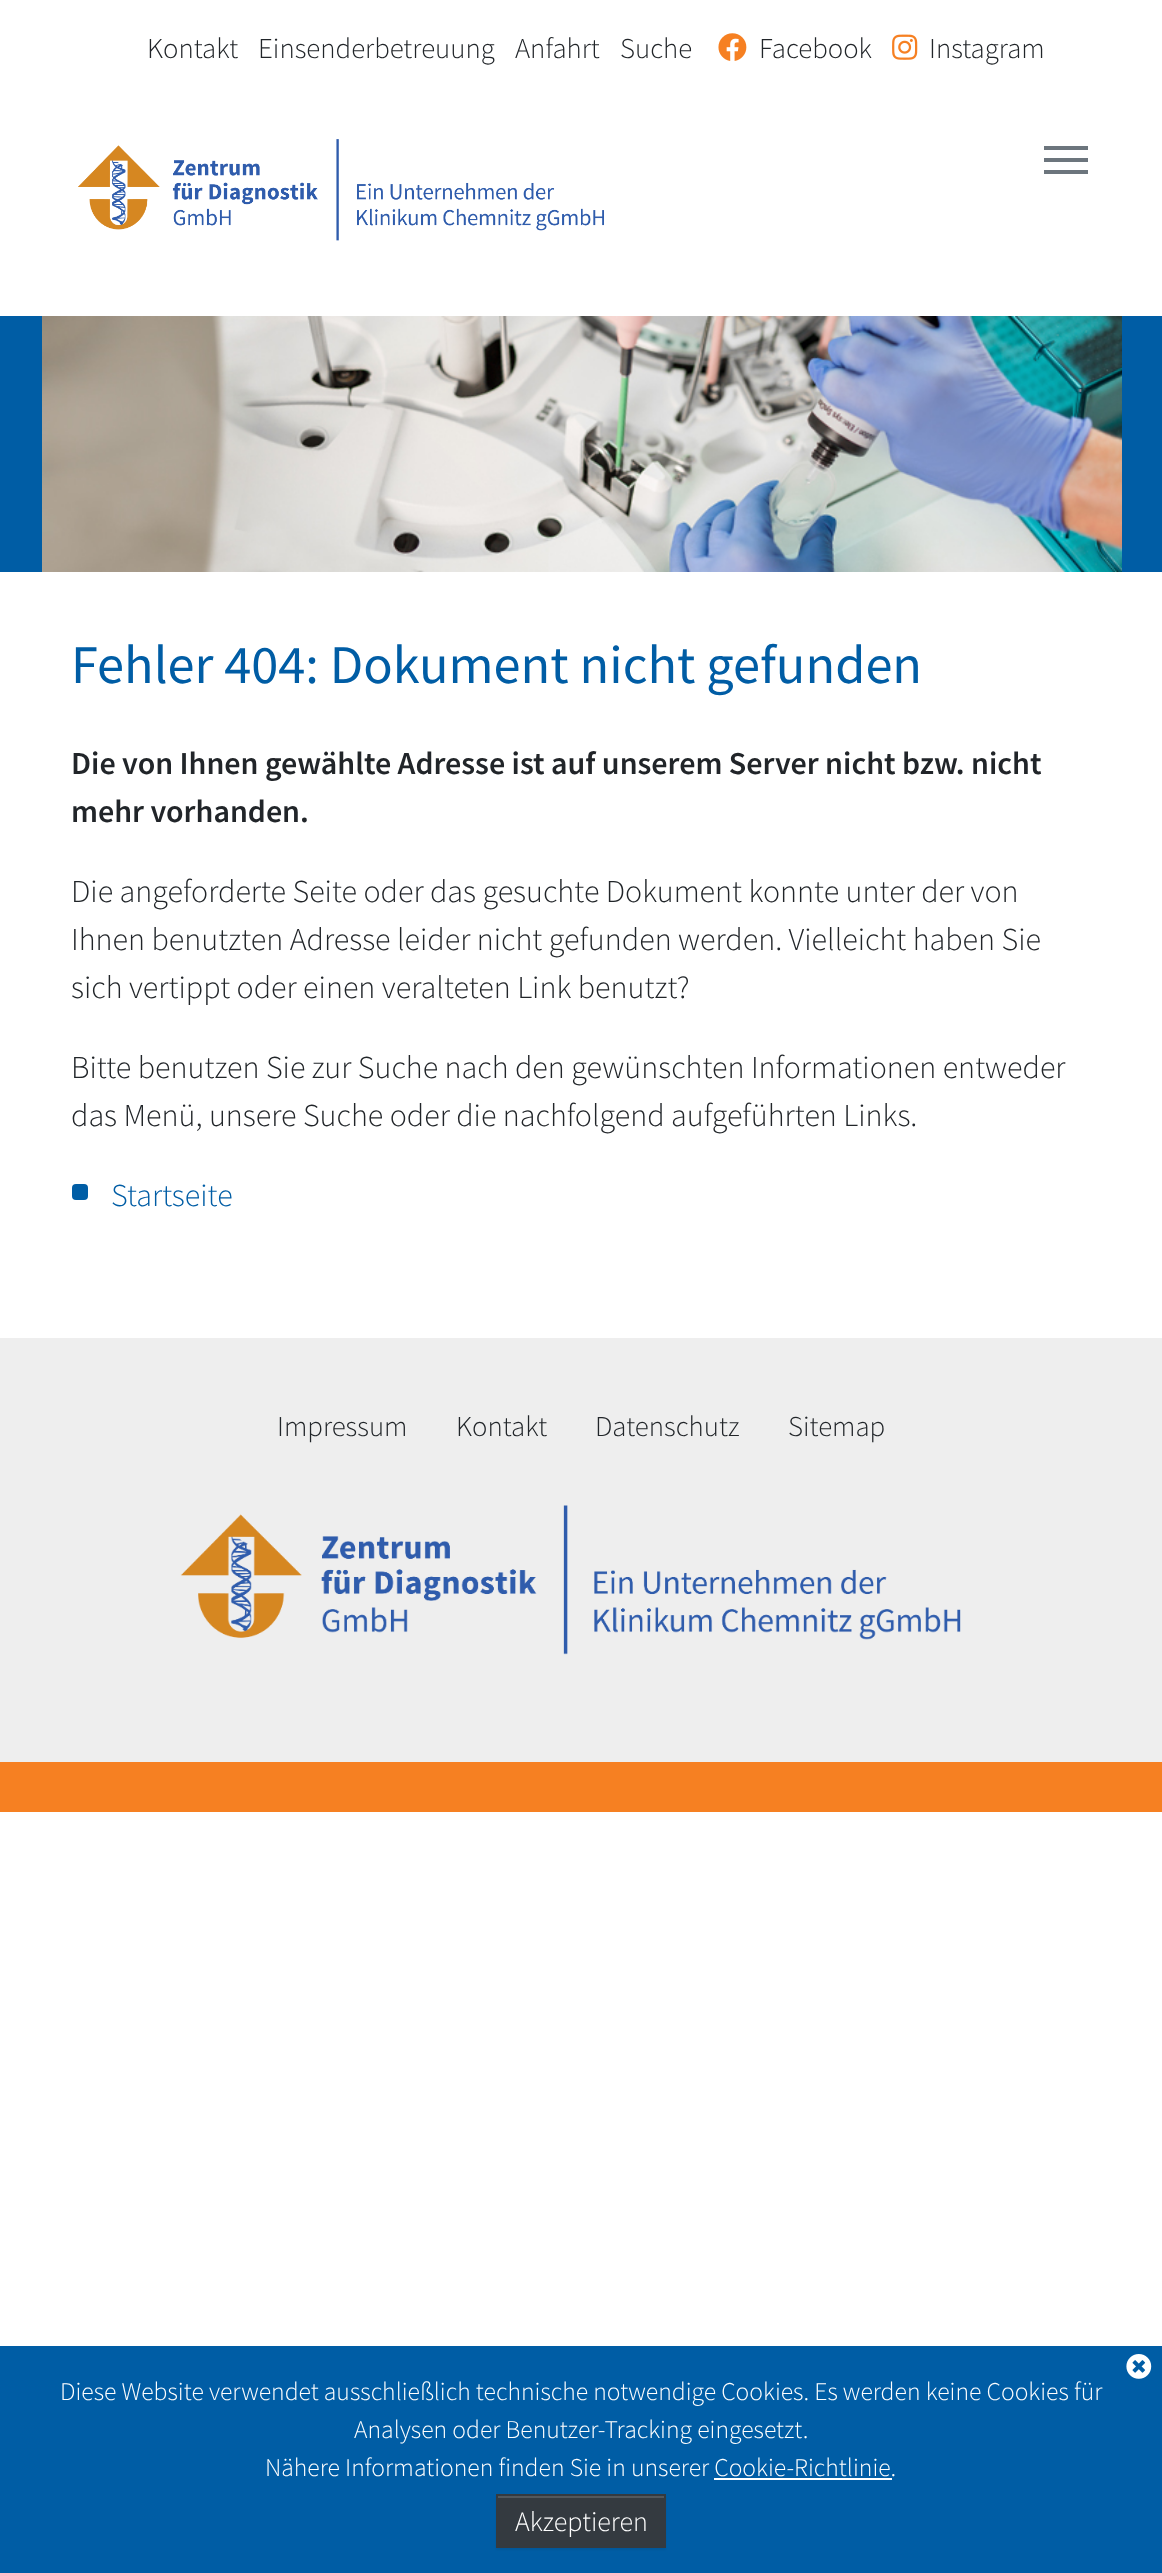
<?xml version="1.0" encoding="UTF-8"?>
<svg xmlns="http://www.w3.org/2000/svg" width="1162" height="2573">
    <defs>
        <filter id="blur1" x="-50%" y="-200%" width="200%" height="500%"><feGaussianBlur stdDeviation="1"/></filter>
    </defs>
    <rect width="100%" height="100%" fill="#FFFFFF"/>
    <text x="147" y="58" font-family="Source Sans Pro" font-size="28.75" font-weight="300" fill="#212529">Kontakt</text>
    <text x="258" y="58" font-family="Source Sans Pro" font-size="28.75" font-weight="300" fill="#212529">Einsenderbetreuung</text>
    <text x="515" y="58" font-family="Source Sans Pro" font-size="28.75" font-weight="300" fill="#212529">Anfahrt</text>
    <text x="620" y="58" font-family="Source Sans Pro" font-size="28.75" font-weight="300" fill="#212529">Suche</text>
    <image x="718" y="33" width="29" height="28" href="img_01.png"/>
    <text x="759" y="58" font-family="Source Sans Pro" font-size="28.75" font-weight="300" fill="#212529">Facebook</text>
    <image x="892" y="34" width="26" height="26" href="img_02.png"/>
    <text x="929" y="58" font-family="Source Sans Pro" font-size="28.75" font-weight="300" fill="#212529">Instagram</text>
    <image x="78" y="139" width="526" height="102" href="img_03.png"/>
    <rect x="1044" y="146" width="44" height="4" fill="#6C757D"/>
    <rect x="1044" y="158" width="44" height="4" fill="#6C757D"/>
    <rect x="1044" y="170" width="44" height="4" fill="#6C757D"/>
    <rect x="0" y="316" width="1162" height="256" fill="#005DA5"/>
    <image x="42" y="316" width="1080" height="256" href="img_04.png"/>
    <text x="71" y="683" font-family="Source Sans Pro" font-size="54.4" fill="#005DA5">Fehler 404: Dokument nicht gefunden</text>
    <text font-family="Source Sans Pro" font-size="32" font-weight="600" fill="#212529">
        <tspan x="71" y="774">Die von Ihnen gewählte Adresse ist auf unserem Server nicht bzw. nicht</tspan>
        <tspan x="71" y="822">mehr vorhanden.</tspan>
    </text>
    <text font-family="Source Sans Pro" font-size="32" font-weight="300" fill="#212529">
        <tspan x="71" y="902">Die angeforderte Seite oder das gesuchte Dokument konnte unter der von</tspan>
        <tspan x="71" y="950">Ihnen benutzten Adresse leider nicht gefunden werden. Vielleicht haben Sie</tspan>
        <tspan x="71" y="998">sich vertippt oder einen veralteten Link benutzt?</tspan>
    </text>
    <text font-family="Source Sans Pro" font-size="32" font-weight="300" fill="#212529">
        <tspan x="71" y="1078">Bitte benutzen Sie zur Suche nach den gewünschten Informationen entweder</tspan>
        <tspan x="71" y="1126">das Menü, unsere Suche oder die nachfolgend aufgeführten Links.</tspan>
    </text>
    <rect x="72" y="1184" width="16" height="16" rx="4" fill="#005DA5"/>
    <text x="111" y="1206" font-family="Source Sans Pro" font-size="32" font-weight="300" fill="#005DA5">Startseite</text>
    <rect x="0" y="1338" width="1162" height="424" fill="#EEEEEE"/>
    <text x="277" y="1436" font-family="Source Sans Pro" font-size="28.75" font-weight="300" fill="#212529">Impressum</text>
    <text x="456" y="1436" font-family="Source Sans Pro" font-size="28.75" font-weight="300" fill="#212529">Kontakt</text>
    <text x="595" y="1436" font-family="Source Sans Pro" font-size="28.75" font-weight="300" fill="#212529">Datenschutz</text>
    <text x="788" y="1436" font-family="Source Sans Pro" font-size="28.75" font-weight="300" fill="#212529">Sitemap</text>
    <image x="180" y="1505" width="781" height="150" href="img_05.png"/>
    <rect x="0" y="1762" width="1162" height="50" fill="#F68022"/>
    <rect x="0" y="2346" width="1162" height="227" fill="#005DA5"/>
    <image x="1126" y="2354" width="26" height="25" href="img_06.png"/>
    <text x="60" y="2400" font-family="Source Sans Pro" font-size="25.6" font-weight="300" fill="#FFFFFF">Diese Website verwendet ausschließlich technische notwendige Cookies. Es werden keine Cookies für</text>
    <text x="354" y="2438" font-family="Source Sans Pro" font-size="25.6" font-weight="300" fill="#FFFFFF">Analysen oder Benutzer-Tracking eingesetzt.</text>
    <text x="265" y="2476" font-family="Source Sans Pro" font-size="25.6" font-weight="300" fill="#FFFFFF">Nähere Informationen finden Sie in unserer Cookie-Richtlinie.</text>
    <rect x="714" y="2478" width="178" height="2" fill="#FFFFFF"/>
    <rect x="496" y="2496" width="170" height="54" fill="#000000" fill-opacity="0.07" filter="url(#blur1)"/>
    <rect x="496" y="2494" width="170" height="54" fill="#343A40"/>
    <rect x="498" y="2496" width="166" height="2" fill="#52585D"/>
    <text x="515" y="2531" font-family="Source Sans Pro" font-size="28" font-weight="300" fill="#FFFFFF">Akzeptieren</text>
</svg>
